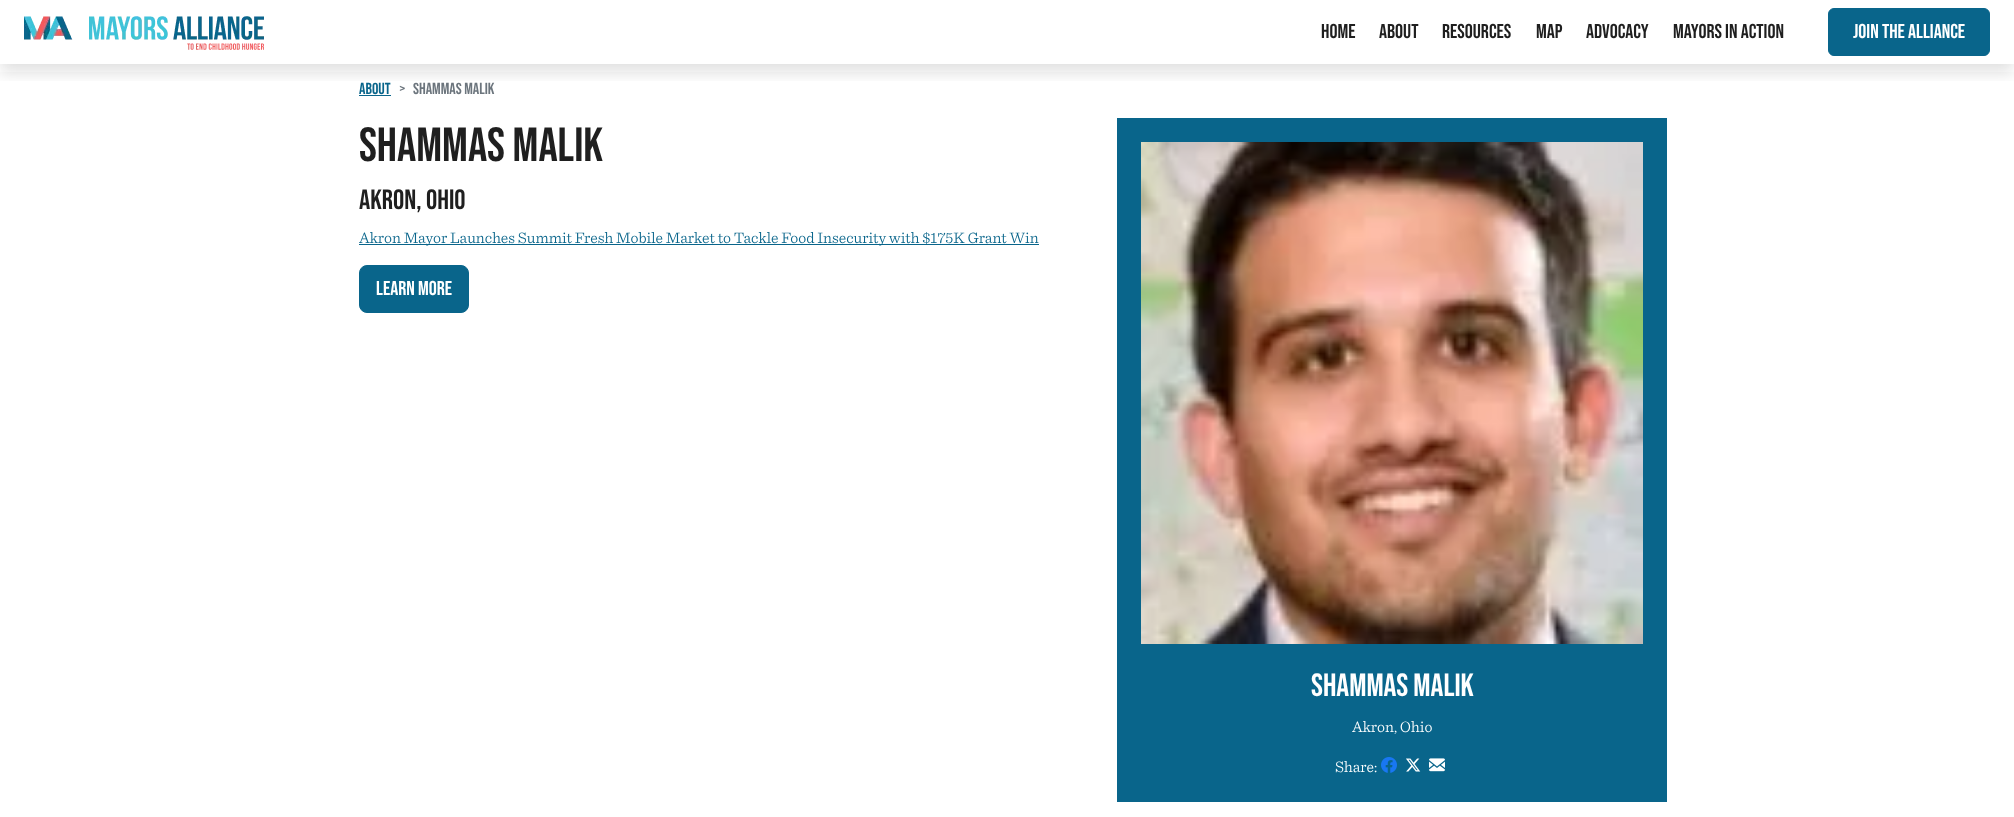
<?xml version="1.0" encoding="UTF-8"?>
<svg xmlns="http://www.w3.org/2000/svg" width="2014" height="817">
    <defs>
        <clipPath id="clip1"><rect x="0" y="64" width="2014" height="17"/></clipPath>
        <filter id="blur1" x="-50%" y="-200%" width="200%" height="500%"><feGaussianBlur stdDeviation="8"/></filter>
    </defs>
    <rect width="100%" height="100%" fill="#FFFFFF"/>
    <rect x="359" y="95" width="32" height="1" fill="#09658B"/>
    <g clip-path="url(#clip1)">
        <rect x="0" y="8" width="2014" height="64" fill="#1F1F1F" fill-opacity="0.15" filter="url(#blur1)"/>
    </g>
    <image x="24" y="16" width="240" height="34" href="img_01.png"/>
    <text x="1321" y="38" font-family="Bebas Neue" font-size="20" fill="#1F1F1F">Home</text>
    <text x="1379" y="38" font-family="Bebas Neue" font-size="20" fill="#1F1F1F">About</text>
    <text x="1442" y="38" font-family="Bebas Neue" font-size="20" fill="#1F1F1F">Resources</text>
    <text x="1536" y="38" font-family="Bebas Neue" font-size="20" fill="#1F1F1F">Map</text>
    <text x="1586" y="38" font-family="Bebas Neue" font-size="20" fill="#1F1F1F">Advocacy</text>
    <text x="1673" y="38" font-family="Bebas Neue" font-size="20" fill="#1F1F1F">Mayors In Action</text>
    <rect x="1828.5" y="8.5" width="161" height="47" rx="5.5" fill="#09658B" stroke="#09658B"/>
    <text x="1853" y="38" font-family="Bebas Neue" font-size="20" fill="#FFFFFF">Join The Alliance</text>
    <text x="359" y="94" font-family="Bebas Neue" font-size="16" fill="#09658B">ABOUT</text>
    <text x="399" y="94" font-family="Bebas Neue" font-size="16" fill="#6C757D">&gt;</text>
    <text x="413" y="94" font-family="Bebas Neue" font-size="16" fill="#6C757D">SHAMMAS MALIK</text>
    <text x="359" y="161" font-family="Bebas Neue" font-size="48" fill="#1F1F1F">Shammas Malik</text>
    <text x="359" y="209" font-family="Bebas Neue" font-size="28" fill="#1F1F1F">Akron, Ohio</text>
    <rect x="359" y="244" width="680" height="1" fill="#09658B"/>
    <text x="359" y="243" font-family="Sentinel" font-size="16" font-weight="300" fill="#09658B">Akron Mayor Launches Summit Fresh Mobile Market to Tackle Food Insecurity with $175K Grant Win</text>
    <rect x="359.5" y="265.5" width="109" height="47" rx="7.5" fill="#09658B" stroke="#09658B"/>
    <text x="376" y="295" font-family="Bebas Neue" font-size="20" fill="#FFFFFF">Learn More</text>
    <rect x="1117" y="118" width="550" height="684" fill="#09658B"/>
    <image x="1141" y="142" width="502" height="502" href="img_02.png"/>
    <text x="1311" y="696" font-family="Bebas Neue" font-size="32" fill="#FFFFFF">Shammas Malik</text>
    <text x="1352" y="732" font-family="Sentinel" font-size="16" font-weight="300" fill="#FFFFFF">Akron, Ohio</text>
    <text x="1335" y="772" font-family="Sentinel" font-size="16" font-weight="300" fill="#FFFFFF">Share:</text>
    <image x="1381" y="757" width="16" height="16" href="img_03.png"/>
    <image x="1406" y="758" width="15" height="14" href="img_04.png"/>
    <image x="1429" y="758" width="16" height="14" href="img_05.png"/>
</svg>
